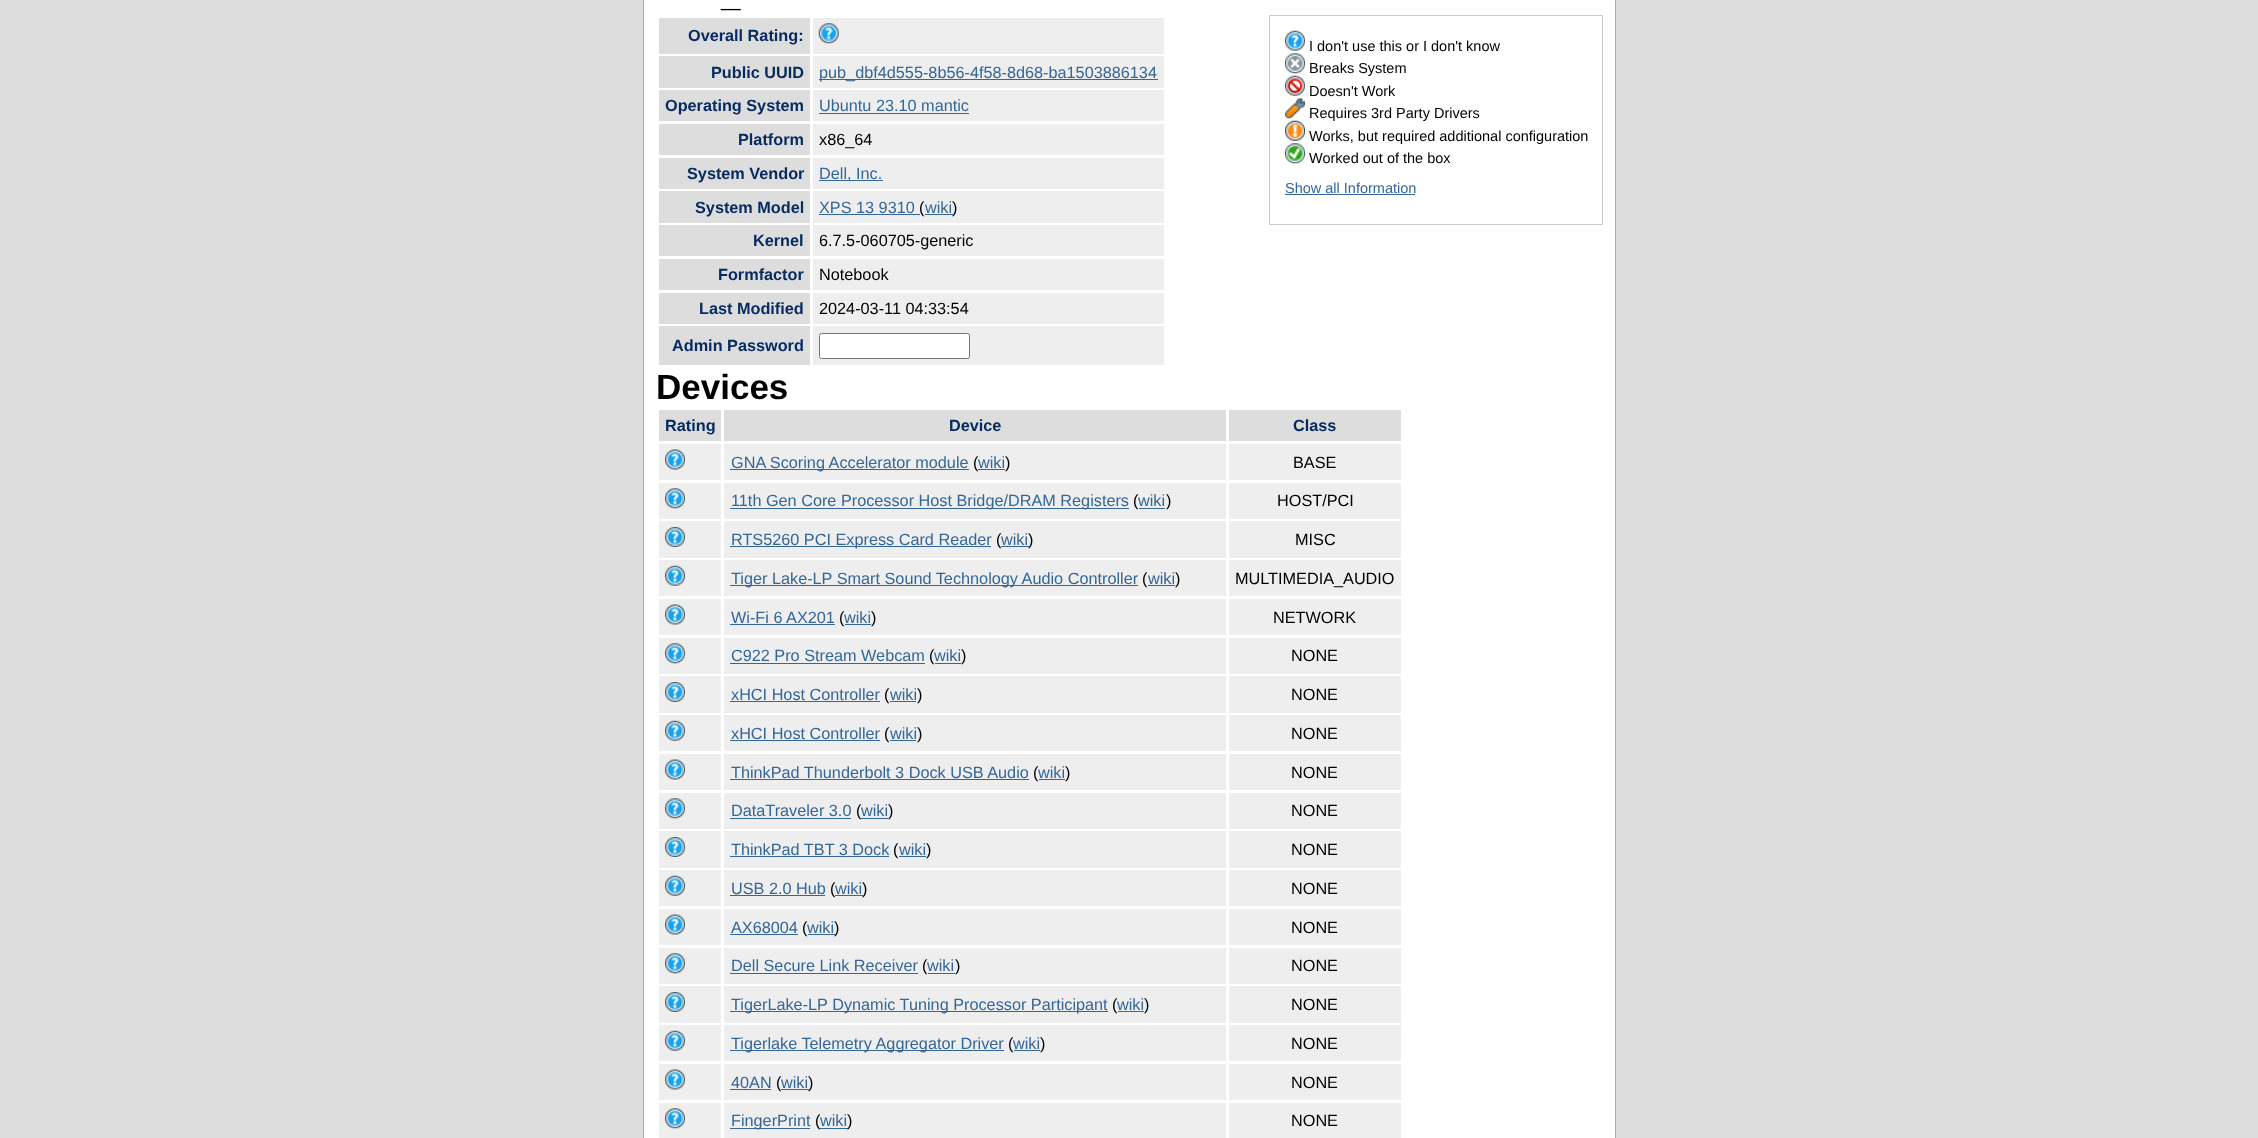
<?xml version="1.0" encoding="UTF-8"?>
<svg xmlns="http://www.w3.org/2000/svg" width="2258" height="1138">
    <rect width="100%" height="100%" fill="#DDDDDD"/>
    <rect x="644" y="0" width="971" height="1138" fill="#FFFFFF"/>
    <rect x="1615" y="0" width="1" height="1138" fill="#AAAAAA"/>
    <rect x="643" y="0" width="1" height="1138" fill="#AAAAAA"/>
    <text x="721" y="6" font-family="Liberation Sans" font-size="35" font-weight="700" fill="#000000">_</text>
    <rect x="659" y="18" width="151" height="36" fill="#DDDDDD"/>
    <text x="688" y="41" font-family="Liberation Sans" font-size="16.25" font-weight="700" fill="#072B61">Overall Rating:</text>
    <rect x="813" y="18" width="351" height="36" fill="#EEEEEE"/>
    <image x="818" y="23" width="21" height="21" href="img_01.png"/>
    <rect x="659" y="56" width="151" height="32" fill="#DDDDDD"/>
    <text x="711" y="78" font-family="Liberation Sans" font-size="16.25" font-weight="700" fill="#072B61">Public UUID</text>
    <rect x="813" y="56" width="351" height="32" fill="#EEEEEE"/>
    <rect x="819" y="79" width="339" height="1" fill="#336699"/>
    <text x="819" y="78" font-family="Liberation Sans" font-size="16.25" fill="#336699">pub_dbf4d555-8b56-4f58-8d68-ba1503886134</text>
    <rect x="659" y="90" width="151" height="31" fill="#DDDDDD"/>
    <text x="665" y="111" font-family="Liberation Sans" font-size="16.25" font-weight="700" fill="#072B61">Operating System</text>
    <rect x="813" y="90" width="351" height="31" fill="#EEEEEE"/>
    <text x="819" y="111" font-family="Liberation Sans" font-size="16.25" fill="#336699">Ubuntu 23.10 mantic</text>
    <rect x="819" y="113" width="150" height="1" fill="#336699"/>
    <rect x="659" y="124" width="151" height="31" fill="#DDDDDD"/>
    <text x="738" y="145" font-family="Liberation Sans" font-size="16.25" font-weight="700" fill="#072B61">Platform</text>
    <rect x="813" y="124" width="351" height="31" fill="#EEEEEE"/>
    <text x="819" y="145" font-family="Liberation Sans" font-size="16.25" fill="#000000">x86_64</text>
    <rect x="659" y="158" width="151" height="31" fill="#DDDDDD"/>
    <text x="687" y="179" font-family="Liberation Sans" font-size="16.25" font-weight="700" fill="#072B61">System Vendor</text>
    <rect x="813" y="158" width="351" height="31" fill="#EEEEEE"/>
    <rect x="819" y="180" width="64" height="1" fill="#336699"/>
    <text x="819" y="179" font-family="Liberation Sans" font-size="16.25" fill="#336699">Dell, Inc.</text>
    <rect x="659" y="191" width="151" height="32" fill="#DDDDDD"/>
    <text x="695" y="213" font-family="Liberation Sans" font-size="16.25" font-weight="700" fill="#072B61">System Model</text>
    <rect x="813" y="191" width="351" height="32" fill="#EEEEEE"/>
    <text x="819" y="213" font-family="Liberation Sans" font-size="16.25" fill="#336699">XPS 13 9310</text>
    <rect x="819" y="214" width="101" height="1" fill="#336699"/>
    <text x="919" y="213" font-family="Liberation Sans" font-size="16.25" fill="#000000">(</text>
    <text x="925" y="213" font-family="Liberation Sans" font-size="16.25" fill="#336699">wiki</text>
    <rect x="925" y="214" width="28" height="1" fill="#336699"/>
    <text x="952" y="213" font-family="Liberation Sans" font-size="16.25" fill="#000000">)</text>
    <rect x="659" y="225" width="151" height="31" fill="#DDDDDD"/>
    <text x="753" y="246" font-family="Liberation Sans" font-size="16.25" font-weight="700" fill="#072B61">Kernel</text>
    <rect x="813" y="225" width="351" height="31" fill="#EEEEEE"/>
    <text x="819" y="246" font-family="Liberation Sans" font-size="16.25" fill="#000000">6.7.5-060705-generic</text>
    <rect x="659" y="259" width="151" height="31" fill="#DDDDDD"/>
    <text x="718" y="280" font-family="Liberation Sans" font-size="16.25" font-weight="700" fill="#072B61">Formfactor</text>
    <rect x="813" y="259" width="351" height="31" fill="#EEEEEE"/>
    <text x="819" y="280" font-family="Liberation Sans" font-size="16.25" fill="#000000">Notebook</text>
    <rect x="659" y="293" width="151" height="31" fill="#DDDDDD"/>
    <text x="699" y="314" font-family="Liberation Sans" font-size="16.25" font-weight="700" fill="#072B61">Last Modified</text>
    <rect x="813" y="293" width="351" height="31" fill="#EEEEEE"/>
    <text x="819" y="314" font-family="Liberation Sans" font-size="16.25" fill="#000000">2024-03-11 04:33:54</text>
    <rect x="659" y="326" width="151" height="39" fill="#DDDDDD"/>
    <text x="672" y="351" font-family="Liberation Sans" font-size="16.25" font-weight="700" fill="#072B61">Admin Password</text>
    <rect x="813" y="326" width="351" height="39" fill="#EEEEEE"/>
    <rect x="819.5" y="333.5" width="150" height="25" rx="2" fill="#FFFFFF" stroke="#767676"/>
    <rect x="1269.5" y="15.5" width="333" height="209" fill="none" stroke="#CCCCCC"/>
    <image x="1285" y="30" width="20" height="21" href="img_02.png"/>
    <text x="1309" y="51" font-family="Liberation Sans" font-size="14.5" fill="#000000">I don't use this or I don't know</text>
    <image x="1285" y="53" width="20" height="21" href="img_03.png"/>
    <text x="1309" y="73" font-family="Liberation Sans" font-size="14.5" fill="#000000">Breaks System</text>
    <image x="1285" y="75" width="20" height="21" href="img_04.png"/>
    <text x="1309" y="96" font-family="Liberation Sans" font-size="14.5" fill="#000000">Doesn't Work</text>
    <image x="1285" y="98" width="20" height="21" href="img_05.png"/>
    <text x="1309" y="118" font-family="Liberation Sans" font-size="14.5" fill="#000000">Requires 3rd Party Drivers</text>
    <image x="1285" y="120" width="20" height="21" href="img_06.png"/>
    <text x="1309" y="141" font-family="Liberation Sans" font-size="14.5" fill="#000000">Works, but required additional configuration</text>
    <image x="1285" y="143" width="20" height="21" href="img_07.png"/>
    <text x="1309" y="163" font-family="Liberation Sans" font-size="14.5" fill="#000000">Worked out of the box</text>
    <text x="1285" y="193" font-family="Liberation Sans" font-size="14.5" fill="#336699">Show all Information</text>
    <rect x="1285" y="194" width="130" height="1" fill="#336699"/>
    <text x="656" y="399" font-family="Liberation Sans" font-size="35" font-weight="700" fill="#000000">Devices</text>
    <rect x="659" y="410" width="62" height="31" fill="#DDDDDD"/>
    <text x="665" y="431" font-family="Liberation Sans" font-size="16.25" font-weight="700" fill="#072B61">Rating</text>
    <rect x="724" y="410" width="502" height="31" fill="#DDDDDD"/>
    <text x="949" y="431" font-family="Liberation Sans" font-size="16.25" font-weight="700" fill="#072B61">Device</text>
    <rect x="1229" y="410" width="172" height="31" fill="#DDDDDD"/>
    <text x="1293" y="431" font-family="Liberation Sans" font-size="16.25" font-weight="700" fill="#072B61">Class</text>
    <rect x="659" y="444" width="62" height="36" fill="#EEEEEE"/>
    <image x="665" y="449" width="20" height="21" href="img_08.png"/>
    <rect x="724" y="444" width="502" height="36" fill="#EEEEEE"/>
    <rect x="730" y="469" width="239" height="1" fill="#336699"/>
    <text x="731" y="468" font-family="Liberation Sans" font-size="16.25" fill="#336699">GNA Scoring Accelerator module</text>
    <text x="973" y="468" font-family="Liberation Sans" font-size="16.25" fill="#000000">(</text>
    <text x="978" y="468" font-family="Liberation Sans" font-size="16.25" fill="#336699">wiki</text>
    <rect x="978" y="469" width="27" height="1" fill="#336699"/>
    <text x="1005" y="468" font-family="Liberation Sans" font-size="16.25" fill="#000000">)</text>
    <rect x="1229" y="444" width="172" height="36" fill="#EEEEEE"/>
    <text x="1293" y="468" font-family="Liberation Sans" font-size="16.25" fill="#000000">BASE</text>
    <rect x="659" y="483" width="62" height="36" fill="#EEEEEE"/>
    <image x="665" y="488" width="20" height="21" href="img_09.png"/>
    <rect x="724" y="483" width="502" height="36" fill="#EEEEEE"/>
    <rect x="730" y="508" width="399" height="1" fill="#336699"/>
    <text x="731" y="506" font-family="Liberation Sans" font-size="16.25" fill="#336699">11th Gen Core Processor Host Bridge/DRAM Registers</text>
    <text x="1133" y="506" font-family="Liberation Sans" font-size="16.25" fill="#000000">(</text>
    <text x="1138" y="506" font-family="Liberation Sans" font-size="16.25" fill="#336699">wiki</text>
    <rect x="1139" y="508" width="26" height="1" fill="#336699"/>
    <text x="1166" y="506" font-family="Liberation Sans" font-size="16.25" fill="#000000">)</text>
    <rect x="1229" y="483" width="172" height="36" fill="#EEEEEE"/>
    <text x="1277" y="506" font-family="Liberation Sans" font-size="16.25" fill="#000000">HOST/PCI</text>
    <rect x="659" y="521" width="62" height="37" fill="#EEEEEE"/>
    <image x="665" y="527" width="20" height="20" href="img_10.png"/>
    <rect x="724" y="521" width="502" height="37" fill="#EEEEEE"/>
    <rect x="730" y="546" width="261" height="1" fill="#336699"/>
    <text x="731" y="545" font-family="Liberation Sans" font-size="16.25" fill="#336699">RTS5260 PCI Express Card Reader</text>
    <text x="996" y="545" font-family="Liberation Sans" font-size="16.25" fill="#000000">(</text>
    <text x="1001" y="545" font-family="Liberation Sans" font-size="16.25" fill="#336699">wiki</text>
    <rect x="1001" y="546" width="28" height="1" fill="#336699"/>
    <text x="1028" y="545" font-family="Liberation Sans" font-size="16.25" fill="#000000">)</text>
    <rect x="1229" y="521" width="172" height="37" fill="#EEEEEE"/>
    <text x="1295" y="545" font-family="Liberation Sans" font-size="16.25" fill="#000000">MISC</text>
    <rect x="659" y="560" width="62" height="36" fill="#EEEEEE"/>
    <image x="665" y="565" width="20" height="21" href="img_11.png"/>
    <rect x="724" y="560" width="502" height="36" fill="#EEEEEE"/>
    <rect x="730" y="585" width="408" height="1" fill="#336699"/>
    <text x="731" y="584" font-family="Liberation Sans" font-size="16.25" fill="#336699">Tiger Lake-LP Smart Sound Technology Audio Controller</text>
    <text x="1142" y="584" font-family="Liberation Sans" font-size="16.25" fill="#000000">(</text>
    <text x="1148" y="584" font-family="Liberation Sans" font-size="16.25" fill="#336699">wiki</text>
    <rect x="1148" y="585" width="27" height="1" fill="#336699"/>
    <text x="1175" y="584" font-family="Liberation Sans" font-size="16.25" fill="#000000">)</text>
    <rect x="1229" y="560" width="172" height="36" fill="#EEEEEE"/>
    <text x="1235" y="584" font-family="Liberation Sans" font-size="16.25" fill="#000000">MULTIMEDIA_AUDIO</text>
    <rect x="659" y="599" width="62" height="36" fill="#EEEEEE"/>
    <image x="665" y="604" width="20" height="21" href="img_08.png"/>
    <rect x="724" y="599" width="502" height="36" fill="#EEEEEE"/>
    <text x="731" y="623" font-family="Liberation Sans" font-size="16.25" fill="#336699">Wi-Fi 6 AX201</text>
    <rect x="730" y="624" width="105" height="1" fill="#336699"/>
    <text x="839" y="623" font-family="Liberation Sans" font-size="16.25" fill="#000000">(</text>
    <text x="844" y="623" font-family="Liberation Sans" font-size="16.25" fill="#336699">wiki</text>
    <rect x="845" y="624" width="26" height="1" fill="#336699"/>
    <text x="871" y="623" font-family="Liberation Sans" font-size="16.25" fill="#000000">)</text>
    <rect x="1229" y="599" width="172" height="36" fill="#EEEEEE"/>
    <text x="1273" y="623" font-family="Liberation Sans" font-size="16.25" fill="#000000">NETWORK</text>
    <rect x="659" y="638" width="62" height="36" fill="#EEEEEE"/>
    <image x="665" y="643" width="20" height="21" href="img_09.png"/>
    <rect x="724" y="638" width="502" height="36" fill="#EEEEEE"/>
    <text x="731" y="661" font-family="Liberation Sans" font-size="16.25" fill="#336699">C922 Pro Stream Webcam</text>
    <rect x="730" y="663" width="195" height="1" fill="#336699"/>
    <text x="929" y="661" font-family="Liberation Sans" font-size="16.25" fill="#000000">(</text>
    <text x="934" y="661" font-family="Liberation Sans" font-size="16.25" fill="#336699">wiki</text>
    <rect x="935" y="663" width="26" height="1" fill="#336699"/>
    <text x="961" y="661" font-family="Liberation Sans" font-size="16.25" fill="#000000">)</text>
    <rect x="1229" y="638" width="172" height="36" fill="#EEEEEE"/>
    <text x="1291" y="661" font-family="Liberation Sans" font-size="16.25" fill="#000000">NONE</text>
    <rect x="659" y="676" width="62" height="37" fill="#EEEEEE"/>
    <image x="665" y="682" width="20" height="20" href="img_10.png"/>
    <rect x="724" y="676" width="502" height="37" fill="#EEEEEE"/>
    <text x="731" y="700" font-family="Liberation Sans" font-size="16.25" fill="#336699">xHCI Host Controller</text>
    <rect x="730" y="701" width="150" height="1" fill="#336699"/>
    <text x="884" y="700" font-family="Liberation Sans" font-size="16.25" fill="#000000">(</text>
    <text x="890" y="700" font-family="Liberation Sans" font-size="16.25" fill="#336699">wiki</text>
    <rect x="890" y="701" width="26" height="1" fill="#336699"/>
    <text x="917" y="700" font-family="Liberation Sans" font-size="16.25" fill="#000000">)</text>
    <rect x="1229" y="676" width="172" height="37" fill="#EEEEEE"/>
    <text x="1291" y="700" font-family="Liberation Sans" font-size="16.25" fill="#000000">NONE</text>
    <rect x="659" y="715" width="62" height="36" fill="#EEEEEE"/>
    <image x="665" y="720" width="20" height="21" href="img_11.png"/>
    <rect x="724" y="715" width="502" height="36" fill="#EEEEEE"/>
    <text x="731" y="739" font-family="Liberation Sans" font-size="16.25" fill="#336699">xHCI Host Controller</text>
    <rect x="730" y="740" width="150" height="1" fill="#336699"/>
    <text x="884" y="739" font-family="Liberation Sans" font-size="16.25" fill="#000000">(</text>
    <text x="890" y="739" font-family="Liberation Sans" font-size="16.25" fill="#336699">wiki</text>
    <rect x="890" y="740" width="26" height="1" fill="#336699"/>
    <text x="917" y="739" font-family="Liberation Sans" font-size="16.25" fill="#000000">)</text>
    <rect x="1229" y="715" width="172" height="36" fill="#EEEEEE"/>
    <text x="1291" y="739" font-family="Liberation Sans" font-size="16.25" fill="#000000">NONE</text>
    <rect x="659" y="754" width="62" height="36" fill="#EEEEEE"/>
    <image x="665" y="759" width="20" height="21" href="img_08.png"/>
    <rect x="724" y="754" width="502" height="36" fill="#EEEEEE"/>
    <text x="731" y="778" font-family="Liberation Sans" font-size="16.25" fill="#336699">ThinkPad Thunderbolt 3 Dock USB Audio</text>
    <rect x="730" y="779" width="299" height="1" fill="#336699"/>
    <text x="1033" y="778" font-family="Liberation Sans" font-size="16.25" fill="#000000">(</text>
    <text x="1038" y="778" font-family="Liberation Sans" font-size="16.25" fill="#336699">wiki</text>
    <rect x="1039" y="779" width="26" height="1" fill="#336699"/>
    <text x="1065" y="778" font-family="Liberation Sans" font-size="16.25" fill="#000000">)</text>
    <rect x="1229" y="754" width="172" height="36" fill="#EEEEEE"/>
    <text x="1291" y="778" font-family="Liberation Sans" font-size="16.25" fill="#000000">NONE</text>
    <rect x="659" y="793" width="62" height="36" fill="#EEEEEE"/>
    <image x="665" y="798" width="20" height="21" href="img_09.png"/>
    <rect x="724" y="793" width="502" height="36" fill="#EEEEEE"/>
    <text x="731" y="816" font-family="Liberation Sans" font-size="16.25" fill="#336699">DataTraveler 3.0</text>
    <rect x="730" y="818" width="121" height="1" fill="#336699"/>
    <text x="856" y="816" font-family="Liberation Sans" font-size="16.25" fill="#000000">(</text>
    <text x="861" y="816" font-family="Liberation Sans" font-size="16.25" fill="#336699">wiki</text>
    <rect x="861" y="818" width="27" height="1" fill="#336699"/>
    <text x="888" y="816" font-family="Liberation Sans" font-size="16.25" fill="#000000">)</text>
    <rect x="1229" y="793" width="172" height="36" fill="#EEEEEE"/>
    <text x="1291" y="816" font-family="Liberation Sans" font-size="16.25" fill="#000000">NONE</text>
    <rect x="659" y="831" width="62" height="37" fill="#EEEEEE"/>
    <image x="665" y="837" width="20" height="20" href="img_10.png"/>
    <rect x="724" y="831" width="502" height="37" fill="#EEEEEE"/>
    <text x="731" y="855" font-family="Liberation Sans" font-size="16.25" fill="#336699">ThinkPad TBT 3 Dock</text>
    <rect x="730" y="856" width="159" height="1" fill="#336699"/>
    <text x="893" y="855" font-family="Liberation Sans" font-size="16.25" fill="#000000">(</text>
    <text x="899" y="855" font-family="Liberation Sans" font-size="16.25" fill="#336699">wiki</text>
    <rect x="899" y="856" width="27" height="1" fill="#336699"/>
    <text x="926" y="855" font-family="Liberation Sans" font-size="16.25" fill="#000000">)</text>
    <rect x="1229" y="831" width="172" height="37" fill="#EEEEEE"/>
    <text x="1291" y="855" font-family="Liberation Sans" font-size="16.25" fill="#000000">NONE</text>
    <rect x="659" y="870" width="62" height="36" fill="#EEEEEE"/>
    <image x="665" y="875" width="20" height="21" href="img_11.png"/>
    <rect x="724" y="870" width="502" height="36" fill="#EEEEEE"/>
    <text x="731" y="894" font-family="Liberation Sans" font-size="16.25" fill="#336699">USB 2.0 Hub</text>
    <rect x="730" y="895" width="95" height="1" fill="#336699"/>
    <text x="830" y="894" font-family="Liberation Sans" font-size="16.25" fill="#000000">(</text>
    <text x="835" y="894" font-family="Liberation Sans" font-size="16.25" fill="#336699">wiki</text>
    <rect x="835" y="895" width="28" height="1" fill="#336699"/>
    <text x="862" y="894" font-family="Liberation Sans" font-size="16.25" fill="#000000">)</text>
    <rect x="1229" y="870" width="172" height="36" fill="#EEEEEE"/>
    <text x="1291" y="894" font-family="Liberation Sans" font-size="16.25" fill="#000000">NONE</text>
    <rect x="659" y="909" width="62" height="36" fill="#EEEEEE"/>
    <image x="665" y="914" width="20" height="21" href="img_08.png"/>
    <rect x="724" y="909" width="502" height="36" fill="#EEEEEE"/>
    <text x="731" y="933" font-family="Liberation Sans" font-size="16.25" fill="#336699">AX68004</text>
    <rect x="730" y="934" width="68" height="1" fill="#336699"/>
    <text x="802" y="933" font-family="Liberation Sans" font-size="16.25" fill="#000000">(</text>
    <text x="807" y="933" font-family="Liberation Sans" font-size="16.25" fill="#336699">wiki</text>
    <rect x="808" y="934" width="27" height="1" fill="#336699"/>
    <text x="834" y="933" font-family="Liberation Sans" font-size="16.25" fill="#000000">)</text>
    <rect x="1229" y="909" width="172" height="36" fill="#EEEEEE"/>
    <text x="1291" y="933" font-family="Liberation Sans" font-size="16.25" fill="#000000">NONE</text>
    <rect x="659" y="948" width="62" height="36" fill="#EEEEEE"/>
    <image x="665" y="953" width="20" height="21" href="img_09.png"/>
    <rect x="724" y="948" width="502" height="36" fill="#EEEEEE"/>
    <text x="731" y="971" font-family="Liberation Sans" font-size="16.25" fill="#336699">Dell Secure Link Receiver</text>
    <rect x="730" y="973" width="188" height="1" fill="#336699"/>
    <text x="922" y="971" font-family="Liberation Sans" font-size="16.25" fill="#000000">(</text>
    <text x="927" y="971" font-family="Liberation Sans" font-size="16.25" fill="#336699">wiki</text>
    <rect x="928" y="973" width="27" height="1" fill="#336699"/>
    <text x="955" y="971" font-family="Liberation Sans" font-size="16.25" fill="#000000">)</text>
    <rect x="1229" y="948" width="172" height="36" fill="#EEEEEE"/>
    <text x="1291" y="971" font-family="Liberation Sans" font-size="16.25" fill="#000000">NONE</text>
    <rect x="659" y="986" width="62" height="37" fill="#EEEEEE"/>
    <image x="665" y="992" width="20" height="20" href="img_10.png"/>
    <rect x="724" y="986" width="502" height="37" fill="#EEEEEE"/>
    <rect x="730" y="1011" width="378" height="1" fill="#336699"/>
    <text x="731" y="1010" font-family="Liberation Sans" font-size="16.25" fill="#336699">TigerLake-LP Dynamic Tuning Processor Participant</text>
    <text x="1112" y="1010" font-family="Liberation Sans" font-size="16.25" fill="#000000">(</text>
    <text x="1117" y="1010" font-family="Liberation Sans" font-size="16.25" fill="#336699">wiki</text>
    <rect x="1118" y="1011" width="26" height="1" fill="#336699"/>
    <text x="1144" y="1010" font-family="Liberation Sans" font-size="16.25" fill="#000000">)</text>
    <rect x="1229" y="986" width="172" height="37" fill="#EEEEEE"/>
    <text x="1291" y="1010" font-family="Liberation Sans" font-size="16.25" fill="#000000">NONE</text>
    <rect x="659" y="1025" width="62" height="36" fill="#EEEEEE"/>
    <image x="665" y="1030" width="20" height="21" href="img_11.png"/>
    <rect x="724" y="1025" width="502" height="36" fill="#EEEEEE"/>
    <rect x="730" y="1050" width="274" height="1" fill="#336699"/>
    <text x="731" y="1049" font-family="Liberation Sans" font-size="16.25" fill="#336699">Tigerlake Telemetry Aggregator Driver</text>
    <text x="1008" y="1049" font-family="Liberation Sans" font-size="16.25" fill="#000000">(</text>
    <text x="1013" y="1049" font-family="Liberation Sans" font-size="16.25" fill="#336699">wiki</text>
    <rect x="1014" y="1050" width="26" height="1" fill="#336699"/>
    <text x="1040" y="1049" font-family="Liberation Sans" font-size="16.25" fill="#000000">)</text>
    <rect x="1229" y="1025" width="172" height="36" fill="#EEEEEE"/>
    <text x="1291" y="1049" font-family="Liberation Sans" font-size="16.25" fill="#000000">NONE</text>
    <rect x="659" y="1064" width="62" height="36" fill="#EEEEEE"/>
    <image x="665" y="1069" width="20" height="21" href="img_08.png"/>
    <rect x="724" y="1064" width="502" height="36" fill="#EEEEEE"/>
    <text x="731" y="1088" font-family="Liberation Sans" font-size="16.25" fill="#336699">40AN</text>
    <rect x="730" y="1089" width="41" height="1" fill="#336699"/>
    <text x="776" y="1088" font-family="Liberation Sans" font-size="16.25" fill="#000000">(</text>
    <text x="781" y="1088" font-family="Liberation Sans" font-size="16.25" fill="#336699">wiki</text>
    <rect x="781" y="1089" width="28" height="1" fill="#336699"/>
    <text x="808" y="1088" font-family="Liberation Sans" font-size="16.25" fill="#000000">)</text>
    <rect x="1229" y="1064" width="172" height="36" fill="#EEEEEE"/>
    <text x="1291" y="1088" font-family="Liberation Sans" font-size="16.25" fill="#000000">NONE</text>
    <rect x="659" y="1103" width="62" height="35" fill="#EEEEEE"/>
    <image x="665" y="1108" width="20" height="21" href="img_09.png"/>
    <rect x="724" y="1103" width="502" height="35" fill="#EEEEEE"/>
    <rect x="730" y="1128" width="80" height="1" fill="#336699"/>
    <text x="731" y="1126" font-family="Liberation Sans" font-size="16.25" fill="#336699">FingerPrint</text>
    <text x="815" y="1126" font-family="Liberation Sans" font-size="16.25" fill="#000000">(</text>
    <text x="820" y="1126" font-family="Liberation Sans" font-size="16.25" fill="#336699">wiki</text>
    <rect x="820" y="1128" width="28" height="1" fill="#336699"/>
    <text x="847" y="1126" font-family="Liberation Sans" font-size="16.25" fill="#000000">)</text>
    <rect x="1229" y="1103" width="172" height="35" fill="#EEEEEE"/>
    <text x="1291" y="1126" font-family="Liberation Sans" font-size="16.25" fill="#000000">NONE</text>
</svg>
